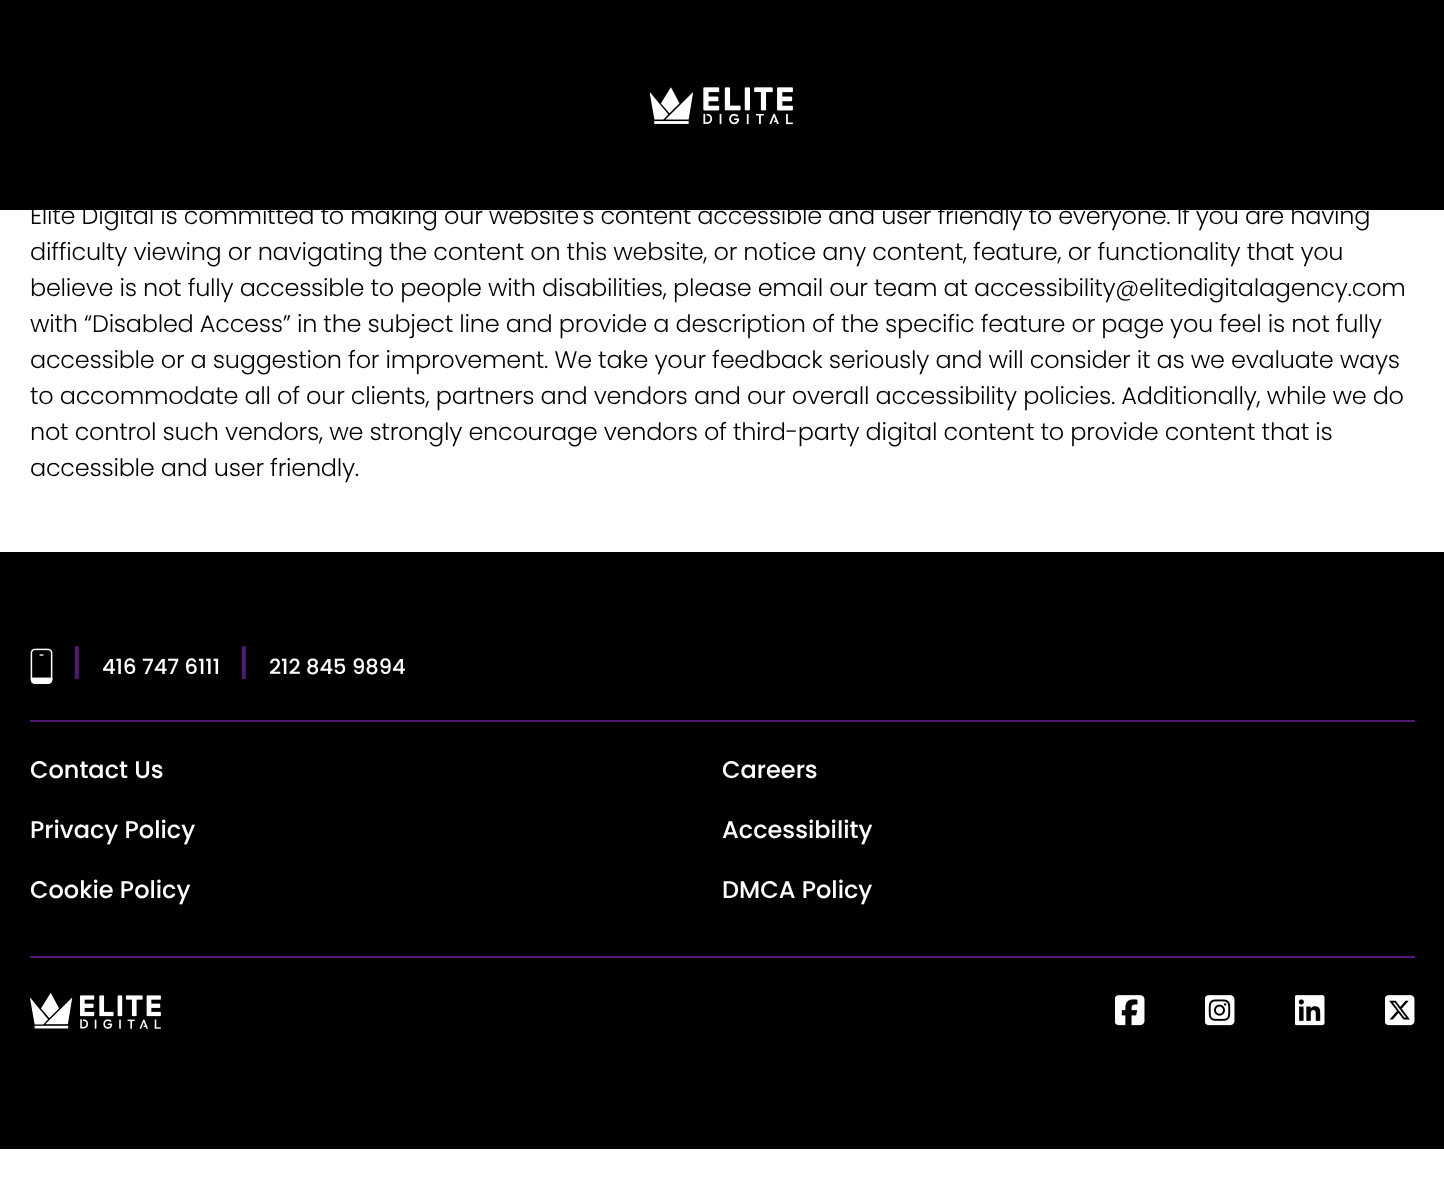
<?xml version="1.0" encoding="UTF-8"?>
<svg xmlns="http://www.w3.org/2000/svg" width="1444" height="1188">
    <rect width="100%" height="100%" fill="#FFFFFF"/>
    <rect x="0" y="0" width="1444" height="210" fill="#000000"/>
    <image x="650" y="87" width="143" height="38" href="img_01.png"/>
    <text font-family="Poppins" font-size="24" font-weight="300" letter-spacing="-0.27" fill="#000000">
        <tspan x="30" y="224">Elite Digital is committed to making our website's content accessible and user friendly to everyone. If you are having</tspan>
        <tspan x="30" y="260">difficulty viewing or navigating the content on this website, or notice any content, feature, or functionality that you</tspan>
        <tspan x="30" y="296">believe is not fully accessible to people with disabilities, please email our team at accessibility@elitedigitalagency.com</tspan>
        <tspan x="30" y="332">with “Disabled Access” in the subject line and provide a description of the specific feature or page you feel is not fully</tspan>
        <tspan x="30" y="368">accessible or a suggestion for improvement. We take your feedback seriously and will consider it as we evaluate ways</tspan>
        <tspan x="30" y="404">to accommodate all of our clients, partners and vendors and our overall accessibility policies. Additionally, while we do</tspan>
        <tspan x="30" y="440">not control such vendors, we strongly encourage vendors of third-party digital content to provide content that is</tspan>
        <tspan x="30" y="476">accessible and user friendly.</tspan>
    </text>
    <rect x="0" y="552" width="1444" height="597" fill="#000000"/>
    <image x="30" y="648" width="23" height="36" href="img_02.png"/>
    <text x="71" y="675" font-family="Poppins" font-size="36" font-weight="500" fill="#551774">|</text>
    <text x="102" y="674" font-family="Poppins" font-size="21" font-weight="500" fill="#FFFFFF">416 747 6111</text>
    <text x="238" y="675" font-family="Poppins" font-size="36" font-weight="500" fill="#551774">|</text>
    <text x="269" y="674" font-family="Poppins" font-size="21" font-weight="500" fill="#FFFFFF">212 845 9894</text>
    <rect x="30" y="720" width="1385" height="2" fill="#551774"/>
    <text x="30" y="778" font-family="Poppins" font-size="24" font-weight="500" fill="#FFFFFF">Contact Us</text>
    <text x="30" y="838" font-family="Poppins" font-size="24" font-weight="500" fill="#FFFFFF">Privacy Policy</text>
    <text x="30" y="898" font-family="Poppins" font-size="24" font-weight="500" fill="#FFFFFF">Cookie Policy</text>
    <text x="722" y="778" font-family="Poppins" font-size="24" font-weight="500" fill="#FFFFFF">Careers</text>
    <text x="722" y="838" font-family="Poppins" font-size="24" font-weight="500" fill="#FFFFFF">Accessibility</text>
    <text x="722" y="898" font-family="Poppins" font-size="24" font-weight="500" fill="#FFFFFF">DMCA Policy</text>
    <rect x="30" y="956" width="1385" height="2" fill="#551774"/>
    <image x="30" y="993" width="131" height="36" href="img_03.png"/>
    <image x="1115" y="995" width="30" height="31" href="img_04.png"/>
    <image x="1205" y="995" width="30" height="31" href="img_05.png"/>
    <image x="1295" y="995" width="30" height="31" href="img_06.png"/>
    <image x="1385" y="995" width="30" height="31" href="img_07.png"/>
</svg>
